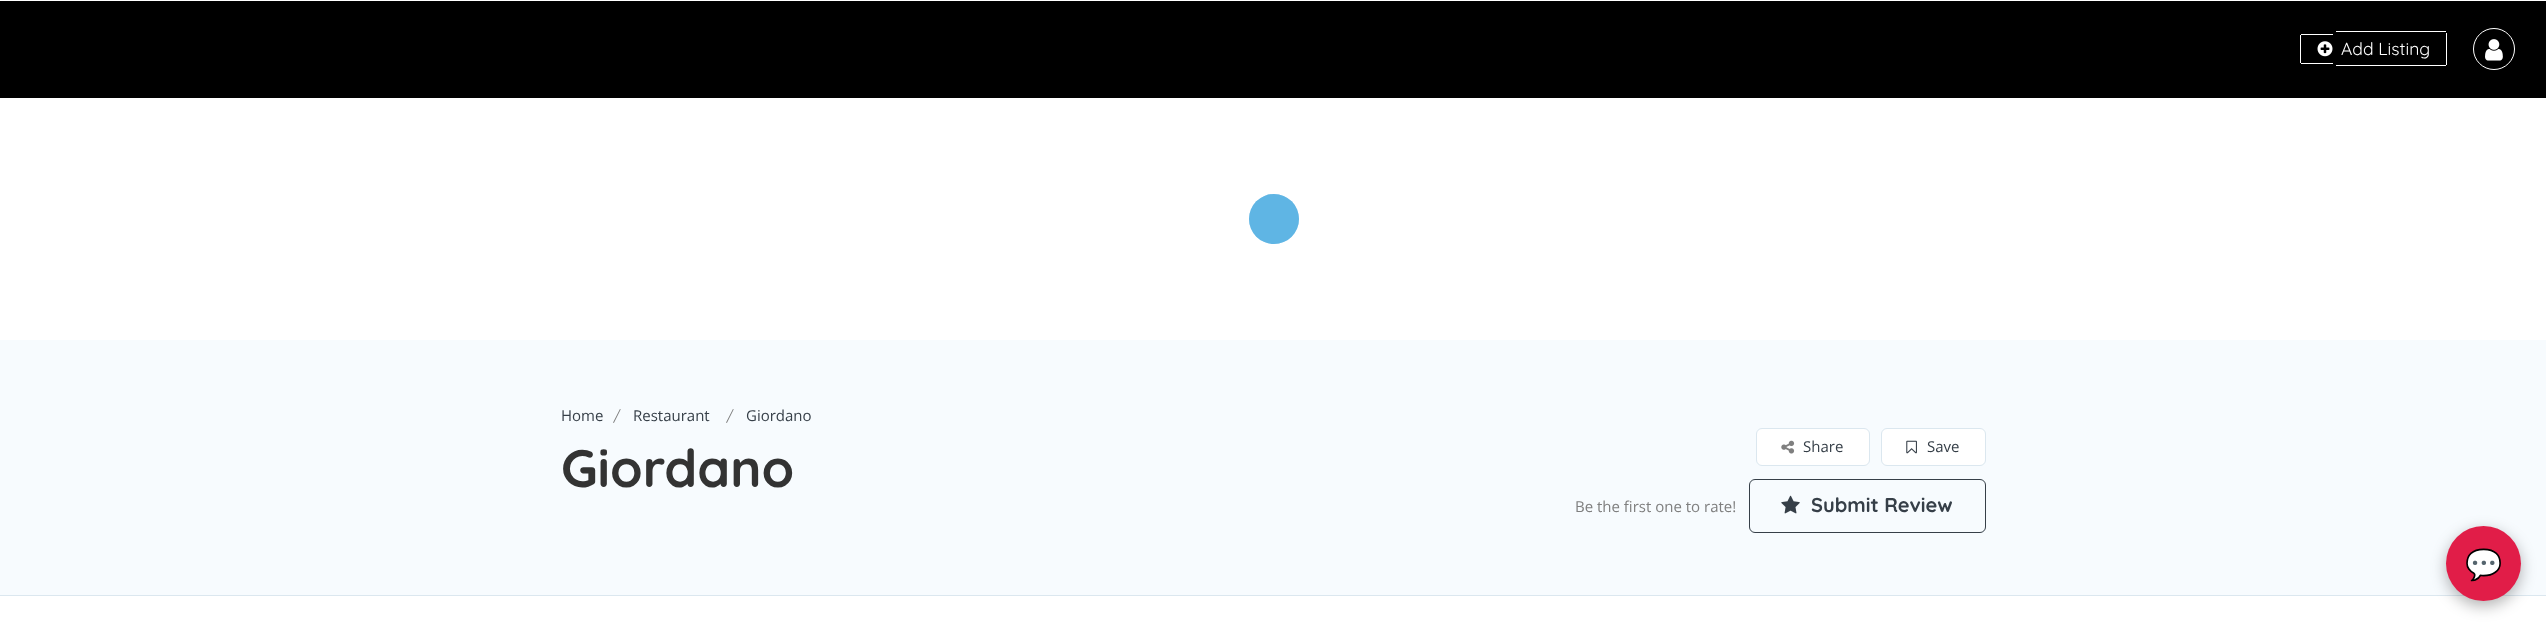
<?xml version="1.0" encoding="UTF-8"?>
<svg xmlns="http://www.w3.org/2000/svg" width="2546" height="626">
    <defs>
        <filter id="blur1" x="-50%" y="-200%" width="200%" height="500%"><feGaussianBlur stdDeviation="7.5"/></filter>
    </defs>
    <rect width="100%" height="100%" fill="#F7FBFE"/>
    <rect x="0" y="0" width="2546" height="1" fill="#FFFFFF"/>
    <rect x="0" y="1" width="2546" height="97" fill="#000000"/>
    <rect x="2301" y="34" width="32" height="1" fill="#FFFFFF"/>
    <rect x="2301" y="63" width="32" height="1" fill="#FFFFFF"/>
    <rect x="2300" y="35" width="1" height="28" fill="#FFFFFF"/>
    <rect x="2336" y="31" width="110" height="1" fill="#FFFFFF"/>
    <rect x="2446" y="33" width="1" height="32" fill="#FFFFFF"/>
    <rect x="2336" y="65" width="110" height="1" fill="#FFFFFF"/>
    <image x="2317" y="41" width="16" height="16" href="img_01.png"/>
    <text x="2341" y="55" font-family="Quicksand" font-size="17.5" fill="#FFFFFF">Add Listing</text>
    <circle cx="2494" cy="49" r="20.5" fill="none" stroke="#FFFFFF"/>
    <image x="2485" y="39" width="18" height="22" href="img_02.png"/>
    <rect x="0" y="98" width="2546" height="242" fill="#FFFFFF"/>
    <circle cx="1274" cy="219" r="25" fill="#8DCAEC"/>
    <circle cx="1274" cy="219" r="25" fill="#41A6DF" fill-opacity="0.6"/>
    <rect x="0" y="595" width="2546" height="1" fill="#DBE7EF"/>
    <text x="561" y="421" font-family="Open Sans" font-size="15" fill="#363F48">Home</text>
    <text x="613" y="421" font-family="Quicksand" font-size="15" fill="#7F7F7F">/</text>
    <text x="633" y="421" font-family="Open Sans" font-size="15" fill="#363F48">Restaurant</text>
    <text x="726" y="421" font-family="Quicksand" font-size="15" fill="#7F7F7F">/</text>
    <text x="746" y="421" font-family="Open Sans" font-size="15" fill="#363F48">Giordano</text>
    <text x="561" y="487" font-family="Quicksand" font-size="52.5" font-weight="700" fill="#333333">Giordano</text>
    <rect x="1756.5" y="428.5" width="113" height="37" rx="5.5" fill="#FFFFFF" stroke="#DBE7EF"/>
    <image x="1781" y="440" width="14" height="14" href="img_03.png"/>
    <text x="1803" y="452" font-family="Open Sans" font-size="15" fill="#363F48">Share</text>
    <rect x="1881.5" y="428.5" width="104" height="37" rx="5.5" fill="#FFFFFF" stroke="#DBE7EF"/>
    <image x="1906" y="440" width="11" height="14" href="img_04.png"/>
    <text x="1927" y="452" font-family="Open Sans" font-size="15" fill="#363F48">Save</text>
    <text x="1575" y="512" font-family="Open Sans" font-size="15" fill="#7F7F7F">Be the first one to rate!</text>
    <rect x="1749.5" y="479.5" width="236" height="53" rx="5.5" fill="none" stroke="#363F48"/>
    <image x="1781" y="495" width="19" height="19" href="img_05.png"/>
    <text x="1811" y="512" font-family="Quicksand" font-size="20" font-weight="700" fill="#363F48">Submit Review</text>
    <rect x="0" y="596" width="2546" height="30" fill="#FFFFFF"/>
    <rect x="2446" y="531" width="75" height="75" rx="37.5" fill="#000000" fill-opacity="0.3" filter="url(#blur1)"/>
    <circle cx="2483.5" cy="563.5" r="37.5" fill="#E11D48"/>
    <text x="2465" y="575" font-family="Noto Color Emoji" font-size="30" fill="#FFFFFF">💬</text>
</svg>
